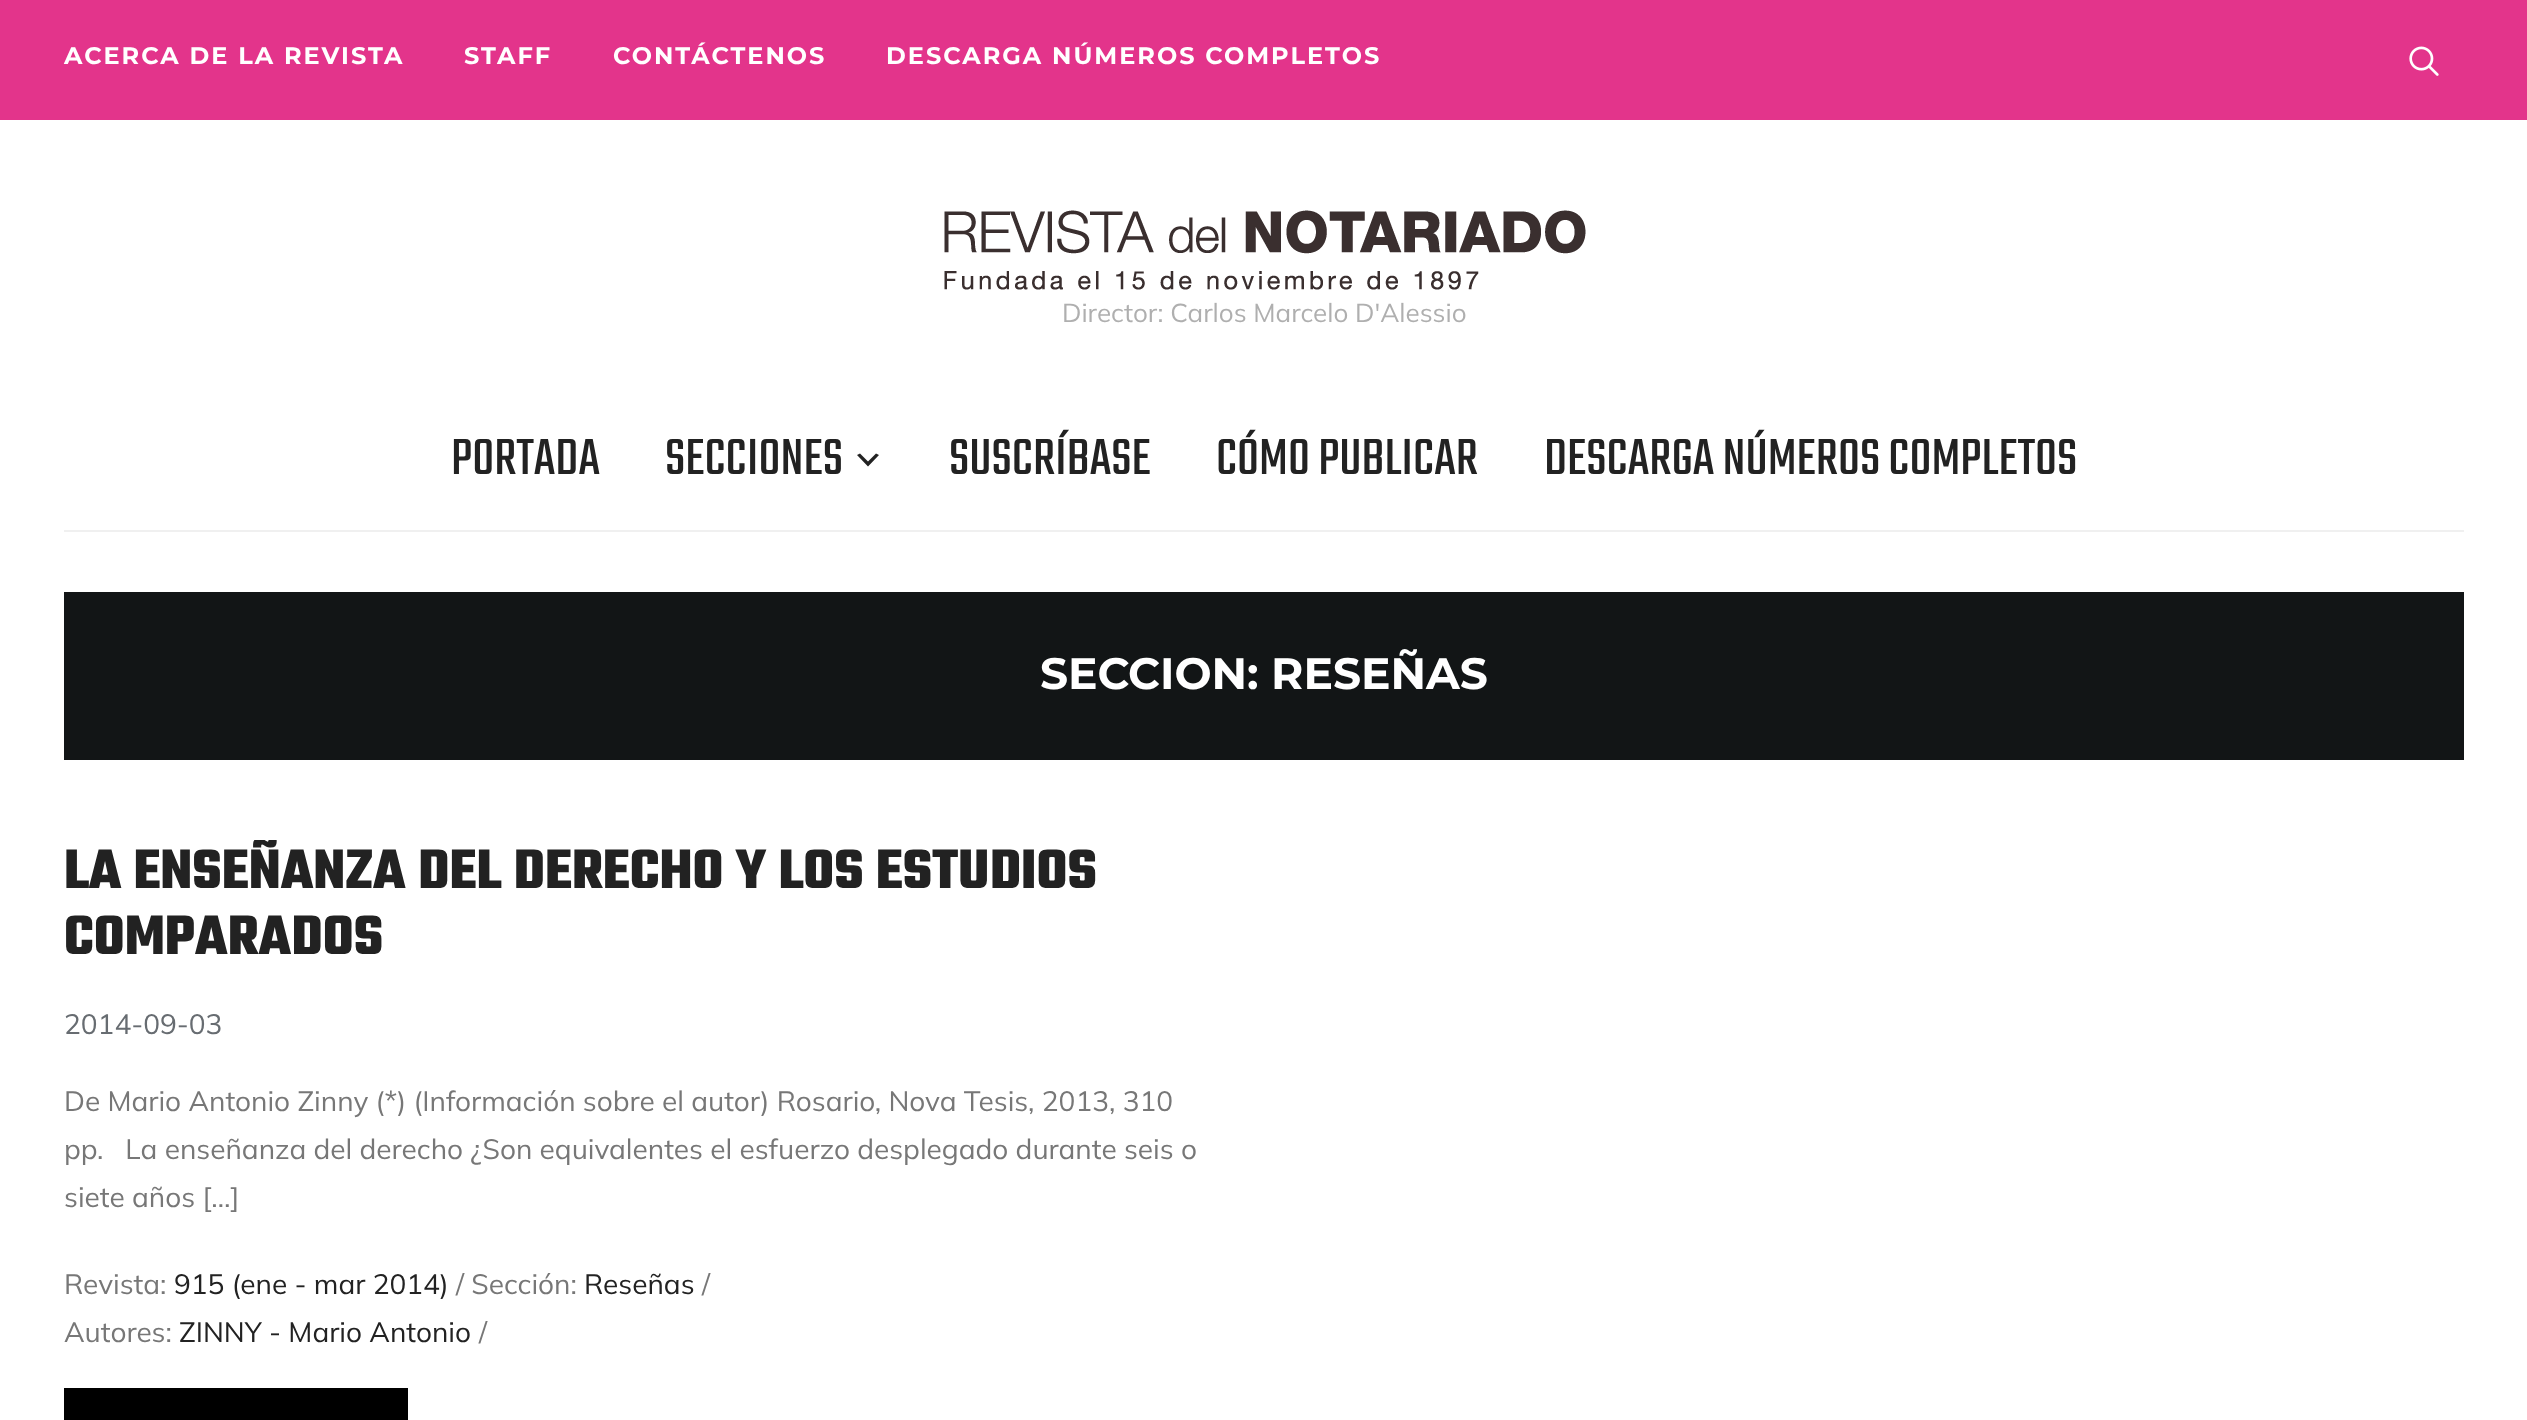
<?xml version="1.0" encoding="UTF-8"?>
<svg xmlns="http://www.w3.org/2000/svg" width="2527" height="1420">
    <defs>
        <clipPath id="clip1"><rect x="64" y="840" width="1152" height="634"/></clipPath>
    </defs>
    <rect width="100%" height="100%" fill="#FFFFFF"/>
    <rect x="0" y="0" width="2527" height="120" fill="#E3348B"/>
    <text x="64" y="64" font-family="Montserrat" font-size="24" font-weight="700" letter-spacing="2" fill="#FFFFFF">ACERCA DE LA REVISTA</text>
    <text x="464" y="64" font-family="Montserrat" font-size="24" font-weight="700" letter-spacing="2" fill="#FFFFFF">STAFF</text>
    <text x="613" y="64" font-family="Montserrat" font-size="24" font-weight="700" letter-spacing="2" fill="#FFFFFF">CONTÁCTENOS</text>
    <text x="886" y="64" font-family="Montserrat" font-size="24" font-weight="700" letter-spacing="2" fill="#FFFFFF">DESCARGA NÚMEROS COMPLETOS</text>
    <image x="2409" y="46" width="30" height="30" href="img_01.png"/>
    <image x="944" y="210" width="642" height="80" href="img_02.png"/>
    <text x="1062" y="322" font-family="Mulish" font-size="26" fill="#AFAFAF">Director: Carlos Marcelo D'Alessio</text>
    <rect x="64" y="530" width="2400" height="2" fill="#F0F0F0"/>
    <text x="451" y="474" font-family="Teko" font-size="56" fill="#222222">PORTADA</text>
    <text x="665" y="474" font-family="Teko" font-size="56" fill="#222222">SECCIONES</text>
    <path d="M 860 453.5 L 868 461.5 L 876 453.5 L 879 455 L 868 466.5 L 857 455 Z" fill="#222222"/>
    <text x="949" y="474" font-family="Teko" font-size="56" fill="#222222">SUSCRÍBASE</text>
    <text x="1216" y="474" font-family="Teko" font-size="56" fill="#222222">CÓMO PUBLICAR</text>
    <text x="1544" y="474" font-family="Teko" font-size="56" fill="#222222">DESCARGA NÚMEROS COMPLETOS</text>
    <rect x="64" y="592" width="2400" height="168" fill="#121516"/>
    <text x="1040" y="689" font-family="Montserrat" font-size="44" font-weight="700" fill="#FFFFFF">SECCION: RESEÑAS</text>
    <g clip-path="url(#clip1)">
        <text x="64" y="888" font-family="Teko" font-size="60" font-weight="700" fill="#222222">LA ENSEÑANZA DEL DERECHO Y LOS ESTUDIOS</text>
    </g>
    <text x="64" y="954" font-family="Teko" font-size="60" font-weight="700" fill="#222222">COMPARADOS</text>
    <text x="64" y="1034" font-family="Mulish" font-size="28" fill="#676C71">2014-09-03</text>
    <text font-family="Mulish" font-size="28" fill="#777777" xml:space="preserve"><tspan x="64" y="1111">De Mario Antonio Zinny (*) (Información sobre el autor) Rosario, Nova Tesis, 2013, 310</tspan><tspan x="64" y="1159">pp.   La enseñanza del derecho ¿Son equivalentes el esfuerzo desplegado durante seis o</tspan><tspan x="64" y="1207">siete años […]</tspan></text>
    <text x="64" y="1294" font-family="Mulish" font-size="28" fill="#777777">Revista:</text>
    <text x="174" y="1294" font-family="Mulish" font-size="28" fill="#222222">915 (ene - mar 2014)</text>
    <text x="456" y="1294" font-family="Mulish" font-size="28" fill="#777777">/ Sección:</text>
    <text x="584" y="1294" font-family="Mulish" font-size="28" fill="#222222">Reseñas</text>
    <text x="702" y="1294" font-family="Mulish" font-size="28" fill="#777777">/</text>
    <text x="64" y="1342" font-family="Mulish" font-size="28" fill="#777777">Autores:</text>
    <text x="179" y="1342" font-family="Mulish" font-size="28" fill="#222222">ZINNY - Mario Antonio</text>
    <text x="479" y="1342" font-family="Mulish" font-size="28" fill="#777777">/</text>
    <rect x="64" y="1388" width="344" height="32" fill="#000000"/>
</svg>
